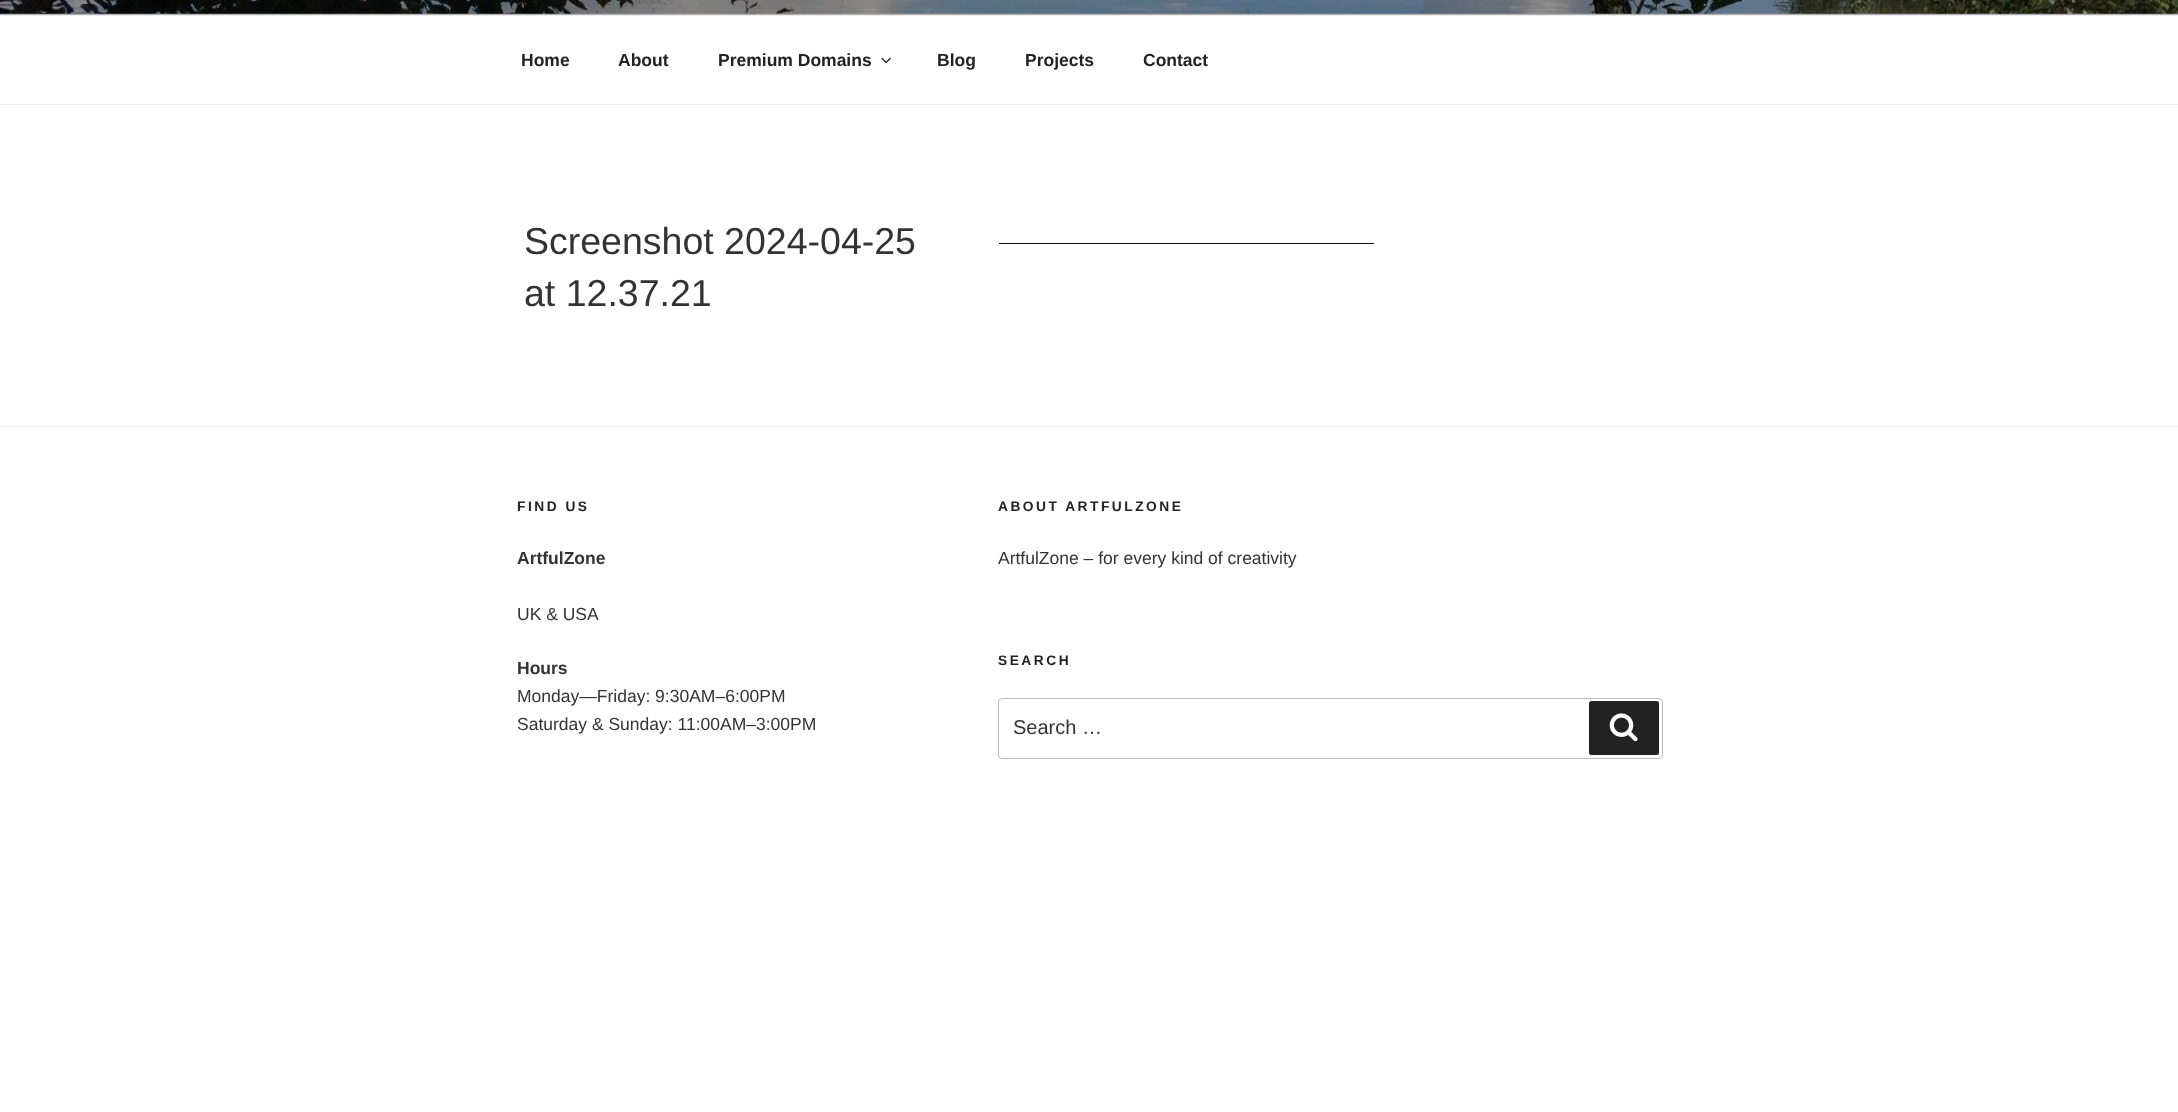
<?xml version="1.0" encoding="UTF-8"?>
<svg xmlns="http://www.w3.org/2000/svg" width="2178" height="1112">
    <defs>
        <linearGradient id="g1" gradientUnits="userSpaceOnUse" x1="1089" y1="-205" x2="1089" y2="15"><stop offset="0" stop-color="#000000" stop-opacity="0"/><stop offset="0.75" stop-color="#000000" stop-opacity="0.3"/><stop offset="1" stop-color="#000000" stop-opacity="0.3"/></linearGradient>
    </defs>
    <rect width="100%" height="100%" fill="#FFFFFF"/>
    <rect x="0" y="13" width="2178" height="2" fill="#FAFAFA"/>
    <image x="0" y="0" width="2178" height="14" href="img_01.png"/>
    <rect x="0" y="0" width="2178" height="15" fill="url(#g1)"/>
    <rect x="0" y="15" width="2178" height="1" fill="#EEEEEE"/>
    <rect x="0" y="104" width="2178" height="1" fill="#EEEEEE"/>
    <text x="521" y="66" font-family="Liberation Sans" font-size="17.5" font-weight="700" fill="#222222">Home</text>
    <text x="618" y="66" font-family="Liberation Sans" font-size="17.5" font-weight="700" fill="#222222">About</text>
    <text x="718" y="66" font-family="Liberation Sans" font-size="17.5" font-weight="700" fill="#222222">Premium Domains</text>
    <image x="881" y="57" width="10" height="7" href="img_02.png"/>
    <text x="937" y="66" font-family="Liberation Sans" font-size="17.5" font-weight="700" fill="#222222">Blog</text>
    <text x="1025" y="66" font-family="Liberation Sans" font-size="17.5" font-weight="700" fill="#222222">Projects</text>
    <text x="1143" y="66" font-family="Liberation Sans" font-size="17.5" font-weight="700" fill="#222222">Contact</text>
    <text font-family="Liberation Sans" font-size="37.5" fill="#333333">
        <tspan x="524" y="254">Screenshot 2024-04-25</tspan>
        <tspan x="524" y="306">at 12.37.21</tspan>
    </text>
    <rect x="999" y="243" width="375" height="1" fill="#0F0F0F"/>
    <rect x="0" y="426" width="2178" height="1" fill="#EEEEEE"/>
    <text x="517" y="511" font-family="Liberation Sans" font-size="13.75" font-weight="700" letter-spacing="2.5" fill="#222222">FIND US</text>
    <text x="517" y="564" font-family="Liberation Sans" font-size="17.5" font-weight="700" fill="#333333">ArtfulZone</text>
    <text x="517" y="620" font-family="Liberation Sans" font-size="17.5" fill="#333333">UK &amp; USA</text>
    <text x="517" y="674" font-family="Liberation Sans" font-size="17.5" font-weight="700" fill="#333333">Hours</text>
    <text font-family="Liberation Sans" font-size="17.5" fill="#333333">
        <tspan x="517" y="702">Monday—Friday: 9:30AM–6:00PM</tspan>
        <tspan x="517" y="730">Saturday &amp; Sunday: 11:00AM–3:00PM</tspan>
    </text>
    <text x="998" y="511" font-family="Liberation Sans" font-size="13.75" font-weight="700" letter-spacing="2.5" fill="#222222">ABOUT ARTFULZONE</text>
    <text x="998" y="564" font-family="Liberation Sans" font-size="17.5" fill="#333333">ArtfulZone – for every kind of creativity</text>
    <text x="998" y="665" font-family="Liberation Sans" font-size="13.75" font-weight="700" letter-spacing="2.5" fill="#222222">SEARCH</text>
    <rect x="998.5" y="698.5" width="664" height="60" rx="3.5" fill="none" stroke="#BBBBBB"/>
    <text x="1013" y="734" font-family="Liberation Sans" font-size="20" fill="#333333">Search …</text>
    <rect x="1589" y="701" width="70" height="54" rx="2.5" fill="#222222"/>
    <image x="1609" y="713" width="29" height="28" href="img_03.png"/>
</svg>
